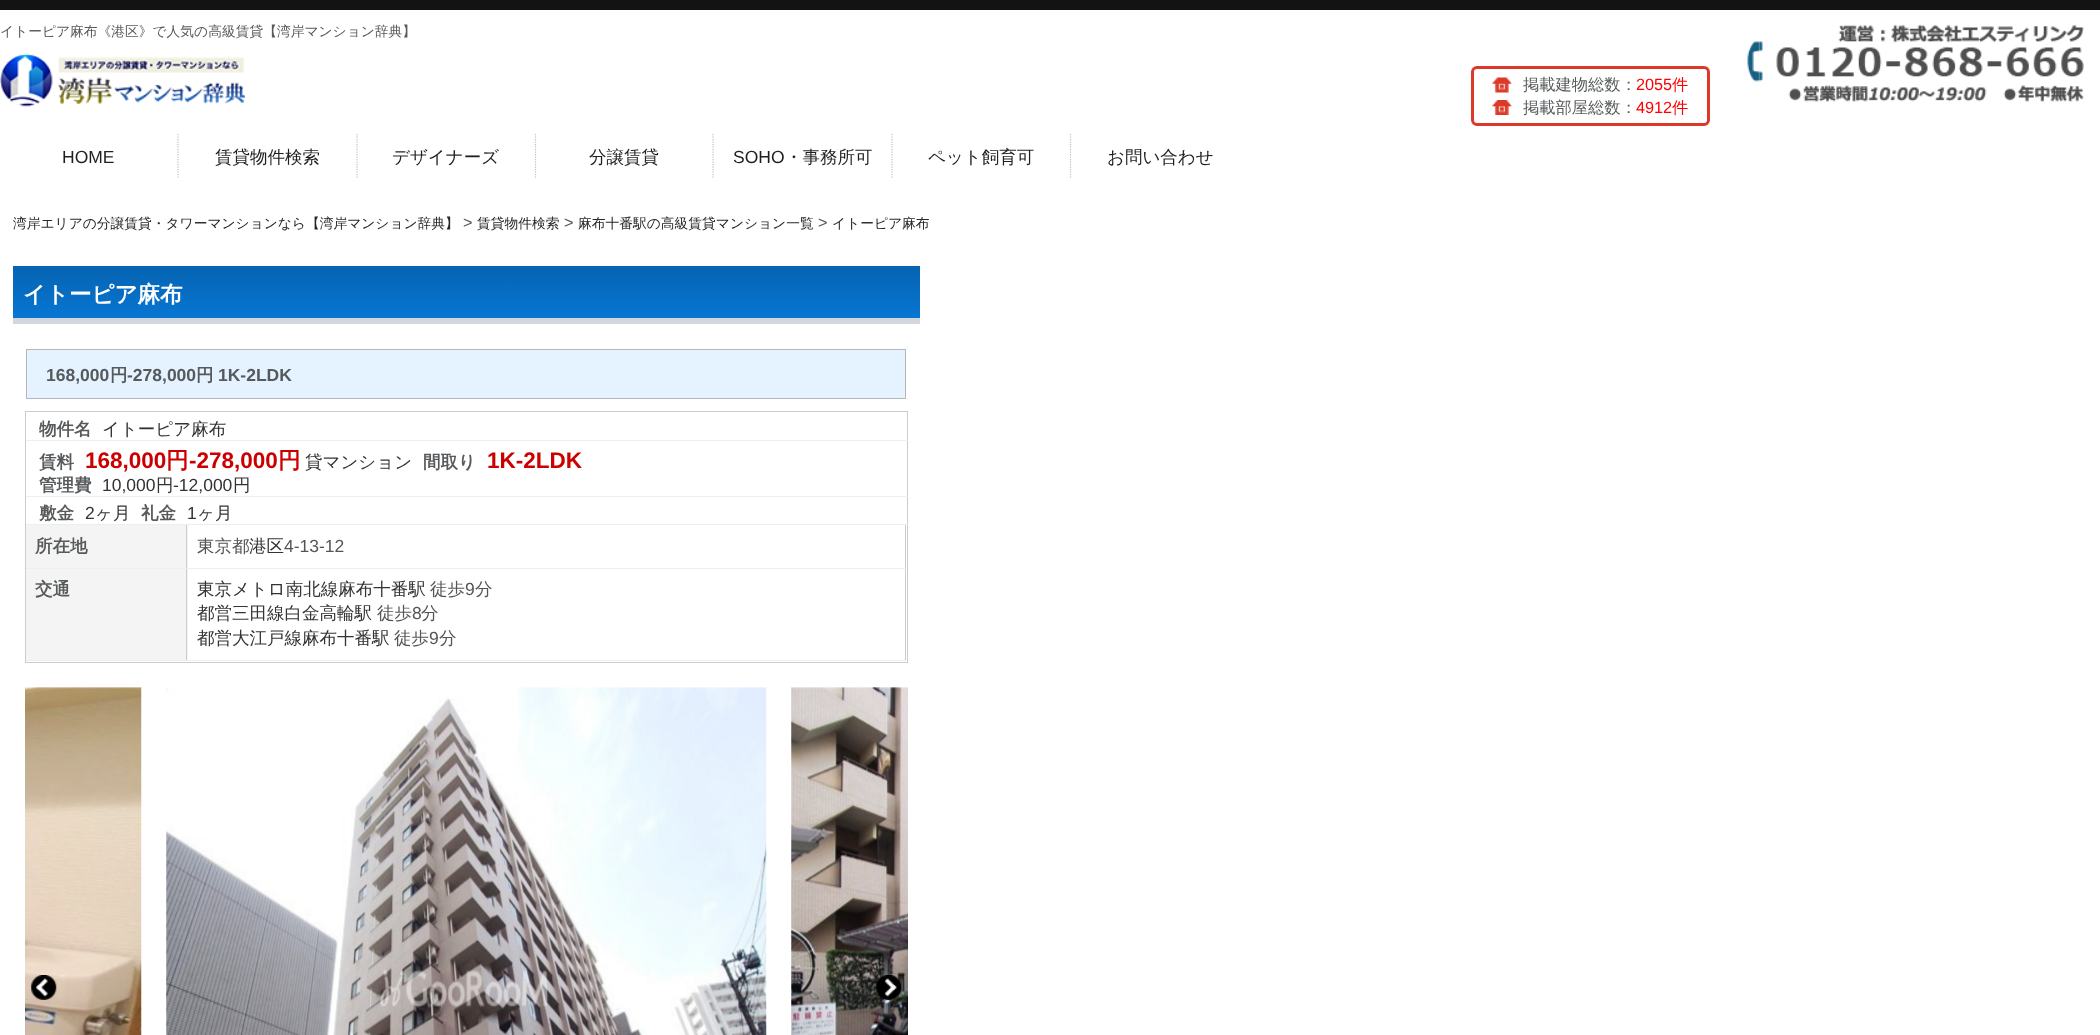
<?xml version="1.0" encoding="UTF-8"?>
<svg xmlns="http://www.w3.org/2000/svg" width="2100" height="1035">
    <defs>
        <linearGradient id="g1" gradientUnits="userSpaceOnUse" x1="466" y1="266" x2="466" y2="318"><stop offset="0" stop-color="#0663B1"/><stop offset="1" stop-color="#0776D3"/></linearGradient>
    </defs>
    <rect width="100%" height="100%" fill="#FFFFFF"/>
    <rect x="0" y="0" width="2100" height="10" fill="#131313"/>
    <text x="0" y="36" font-family="WenQuanYi Zen Hei" font-size="13.75" font-weight="500" fill="#575A5C">イトーピア麻布《港区》で人気の高級賃貸【湾岸マンション辞典】</text>
    <image x="0" y="53" width="245" height="54" href="img_01.png"/>
    <rect x="1472.5" y="67.5" width="236" height="57" rx="4.5" fill="none" stroke="#DC3928" stroke-width="3"/>
    <image x="1492" y="77" width="20" height="16" href="img_02.png"/>
    <text x="1523" y="90" font-family="WenQuanYi Zen Hei" font-size="16.25" font-weight="500" fill="#575A5C">掲載建物総数：</text>
    <text x="1636" y="90" font-family="Liberation Sans" font-size="16.25" fill="#FF0000">2055</text>
    <text x="1672" y="90" font-family="WenQuanYi Zen Hei" font-size="16.25" font-weight="500" fill="#FF0000">件</text>
    <image x="1492" y="100" width="20" height="15" href="img_03.png"/>
    <text x="1523" y="113" font-family="WenQuanYi Zen Hei" font-size="16.25" font-weight="500" fill="#575A5C">掲載部屋総数：</text>
    <text x="1636" y="113" font-family="Liberation Sans" font-size="16.25" fill="#FF0000">4912</text>
    <text x="1672" y="113" font-family="WenQuanYi Zen Hei" font-size="16.25" font-weight="500" fill="#FF0000">件</text>
    <image x="1747" y="24" width="337" height="78" href="img_04.png"/>
    <path d="M 178 134 V 179" fill="none" stroke="#C0C0C0" stroke-width="1.2" stroke-dasharray="1.25 1.25"/>
    <text x="62" y="163" font-family="Liberation Sans" font-size="17.5" fill="#1F1F20">HOME</text>
    <path d="M 357 134 V 179" fill="none" stroke="#C0C0C0" stroke-width="1.2" stroke-dasharray="1.25 1.25"/>
    <text x="215" y="163" font-family="WenQuanYi Zen Hei" font-size="17.5" font-weight="500" fill="#1F1F20">賃貸物件検索</text>
    <path d="M 535.5 134 V 179" fill="none" stroke="#C0C0C0" stroke-width="1.2" stroke-dasharray="1.25 1.25"/>
    <text x="392" y="163" font-family="WenQuanYi Zen Hei" font-size="17.5" font-weight="500" fill="#1F1F20">デザイナーズ</text>
    <path d="M 713 134 V 179" fill="none" stroke="#C0C0C0" stroke-width="1.2" stroke-dasharray="1.25 1.25"/>
    <text x="589" y="163" font-family="WenQuanYi Zen Hei" font-size="17.5" font-weight="500" fill="#1F1F20">分譲賃貸</text>
    <path d="M 892 134 V 179" fill="none" stroke="#C0C0C0" stroke-width="1.2" stroke-dasharray="1.25 1.25"/>
    <text x="733" y="163" font-family="Liberation Sans" font-size="17.5" fill="#1F1F20">SOHO</text>
    <text x="785" y="163" font-family="WenQuanYi Zen Hei" font-size="17.5" font-weight="500" fill="#1F1F20">・事務所可</text>
    <path d="M 1070.5 134 V 179" fill="none" stroke="#C0C0C0" stroke-width="1.2" stroke-dasharray="1.25 1.25"/>
    <text x="928" y="163" font-family="WenQuanYi Zen Hei" font-size="17.5" font-weight="500" fill="#1F1F20">ペット飼育可</text>
    <text x="1107" y="163" font-family="WenQuanYi Zen Hei" font-size="17.5" font-weight="500" fill="#1F1F20">お問い合わせ</text>
    <text x="13" y="228" font-family="WenQuanYi Zen Hei" font-size="13.75" font-weight="500" fill="#272727">湾岸エリアの分譲賃貸・タワーマンションなら【湾岸マンション辞典】</text>
    <text x="463" y="228" font-family="Liberation Sans" font-size="16.25" fill="#575A5C">&gt;</text>
    <text x="477" y="228" font-family="WenQuanYi Zen Hei" font-size="13.75" font-weight="500" fill="#272727">賃貸物件検索</text>
    <text x="564" y="228" font-family="Liberation Sans" font-size="16.25" fill="#575A5C">&gt;</text>
    <text x="578" y="228" font-family="WenQuanYi Zen Hei" font-size="13.75" font-weight="500" fill="#272727">麻布十番駅の高級賃貸マンション一覧</text>
    <text x="818" y="228" font-family="Liberation Sans" font-size="16.25" fill="#575A5C">&gt;</text>
    <text x="832" y="228" font-family="WenQuanYi Zen Hei" font-size="13.75" font-weight="500" fill="#272727">イトーピア麻布</text>
    <rect x="13" y="266" width="907" height="52" fill="url(#g1)"/>
    <rect x="13" y="318" width="907" height="6" fill="#D1D7DD"/>
    <text x="23" y="302" font-family="WenQuanYi Zen Hei" font-size="22.5" font-weight="700" fill="#FFFFFF">イトーピア麻布</text>
    <rect x="26.5" y="349.5" width="879" height="49" fill="#E4F3FF" stroke="#B7B7B7"/>
    <text x="46" y="381" font-family="Liberation Sans" font-size="17.5" font-weight="700" fill="#575A5C">168,000</text>
    <text x="110" y="381" font-family="WenQuanYi Zen Hei" font-size="17.5" font-weight="700" fill="#575A5C">円</text>
    <text x="127" y="381" font-family="Liberation Sans" font-size="17.5" font-weight="700" fill="#575A5C">-278,000</text>
    <text x="196" y="381" font-family="WenQuanYi Zen Hei" font-size="17.5" font-weight="700" fill="#575A5C">円</text>
    <text x="218" y="381" font-family="Liberation Sans" font-size="17.5" font-weight="700" fill="#575A5C">1K-2LDK</text>
    <rect x="25.5" y="411.5" width="882" height="251" fill="none" stroke="#CCCCCC"/>
    <rect x="26" y="440" width="882" height="1" fill="#EEEEEE"/>
    <text x="39" y="435" font-family="WenQuanYi Zen Hei" font-size="17.5" font-weight="700" fill="#575A5C">物件名</text>
    <text x="102" y="435" font-family="WenQuanYi Zen Hei" font-size="17.5" font-weight="500" fill="#333333">イトーピア麻布</text>
    <rect x="26" y="496" width="882" height="1" fill="#EEEEEE"/>
    <text x="39" y="468" font-family="WenQuanYi Zen Hei" font-size="17.5" font-weight="700" fill="#575A5C">賃料</text>
    <text x="85" y="468" font-family="Liberation Sans" font-size="22.5" font-weight="700" fill="#CC0000">168,000</text>
    <text x="166" y="468" font-family="WenQuanYi Zen Hei" font-size="22.5" font-weight="700" fill="#CC0000">円</text>
    <text x="189" y="468" font-family="Liberation Sans" font-size="22.5" font-weight="700" fill="#CC0000">-278,000</text>
    <text x="278" y="468" font-family="WenQuanYi Zen Hei" font-size="22.5" font-weight="700" fill="#CC0000">円</text>
    <text x="305" y="468" font-family="WenQuanYi Zen Hei" font-size="17.5" font-weight="500" fill="#333333">貸マンション</text>
    <text x="423" y="468" font-family="WenQuanYi Zen Hei" font-size="17.5" font-weight="700" fill="#575A5C">間取り</text>
    <text x="487" y="468" font-family="Liberation Sans" font-size="22.5" font-weight="700" fill="#CC0000">1K-2LDK</text>
    <text x="39" y="491" font-family="WenQuanYi Zen Hei" font-size="17.5" font-weight="700" fill="#575A5C">管理費</text>
    <text x="102" y="491" font-family="Liberation Sans" font-size="17.5" fill="#333333">10,000</text>
    <text x="156" y="491" font-family="WenQuanYi Zen Hei" font-size="17.5" font-weight="500" fill="#333333">円</text>
    <text x="173" y="491" font-family="Liberation Sans" font-size="17.5" fill="#333333">-12,000</text>
    <text x="233" y="491" font-family="WenQuanYi Zen Hei" font-size="17.5" font-weight="500" fill="#333333">円</text>
    <rect x="26" y="524" width="882" height="1" fill="#EEEEEE"/>
    <text x="39" y="519" font-family="WenQuanYi Zen Hei" font-size="17.5" font-weight="700" fill="#575A5C">敷金</text>
    <text x="85" y="519" font-family="Liberation Sans" font-size="17.5" fill="#333333">2</text>
    <text x="95" y="519" font-family="WenQuanYi Zen Hei" font-size="17.5" font-weight="500" fill="#333333">ヶ月</text>
    <text x="141" y="519" font-family="WenQuanYi Zen Hei" font-size="17.5" font-weight="700" fill="#575A5C">礼金</text>
    <text x="187" y="519" font-family="Liberation Sans" font-size="17.5" fill="#333333">1</text>
    <text x="197" y="519" font-family="WenQuanYi Zen Hei" font-size="17.5" font-weight="500" fill="#333333">ヶ月</text>
    <rect x="26" y="525" width="162" height="43" fill="#F4F4F4"/>
    <rect x="26" y="569" width="162" height="91" fill="#F4F4F4"/>
    <rect x="905" y="525" width="1" height="136" fill="#CCCCCC"/>
    <rect x="186" y="660" width="720" height="1" fill="#EEEEEE"/>
    <rect x="186" y="568" width="1" height="93" fill="#CCCCCC"/>
    <rect x="186" y="568" width="720" height="1" fill="#EEEEEE"/>
    <rect x="186" y="525" width="1" height="44" fill="#CCCCCC"/>
    <rect x="26" y="568" width="162" height="1" fill="#EEEEEE"/>
    <text x="35" y="552" font-family="WenQuanYi Zen Hei" font-size="17.5" font-weight="700" fill="#575A5C">所在地</text>
    <text x="197" y="552" font-family="WenQuanYi Zen Hei" font-size="17.5" font-weight="500" fill="#555555">東京都</text>
    <text x="249" y="552" font-family="WenQuanYi Zen Hei" font-size="17.5" font-weight="500" fill="#333333">港区</text>
    <text x="284" y="552" font-family="Liberation Sans" font-size="17.5" fill="#555555">4-13-12</text>
    <rect x="26" y="660" width="162" height="1" fill="#EEEEEE"/>
    <text x="35" y="595" font-family="WenQuanYi Zen Hei" font-size="17.5" font-weight="700" fill="#575A5C">交通</text>
    <text x="197" y="595" font-family="WenQuanYi Zen Hei" font-size="17.5" font-weight="500" fill="#333333">東京メトロ南北線麻布十番駅</text>
    <text x="430" y="595" font-family="WenQuanYi Zen Hei" font-size="17.5" font-weight="500" fill="#555555">徒歩</text>
    <text x="465" y="595" font-family="Liberation Sans" font-size="17.5" fill="#555555">9</text>
    <text x="475" y="595" font-family="WenQuanYi Zen Hei" font-size="17.5" font-weight="500" fill="#555555">分</text>
    <text x="197" y="619" font-family="WenQuanYi Zen Hei" font-size="17.5" font-weight="500" fill="#333333">都営三田線白金高輪駅</text>
    <text x="377" y="619" font-family="WenQuanYi Zen Hei" font-size="17.5" font-weight="500" fill="#555555">徒歩</text>
    <text x="412" y="619" font-family="Liberation Sans" font-size="17.5" fill="#555555">8</text>
    <text x="421" y="619" font-family="WenQuanYi Zen Hei" font-size="17.5" font-weight="500" fill="#555555">分</text>
    <text x="197" y="644" font-family="WenQuanYi Zen Hei" font-size="17.5" font-weight="500" fill="#333333">都営大江戸線麻布十番駅</text>
    <text x="394" y="644" font-family="WenQuanYi Zen Hei" font-size="17.5" font-weight="500" fill="#555555">徒歩</text>
    <text x="429" y="644" font-family="Liberation Sans" font-size="17.5" fill="#555555">9</text>
    <text x="439" y="644" font-family="WenQuanYi Zen Hei" font-size="17.5" font-weight="500" fill="#555555">分</text>
    <image x="25" y="687" width="117" height="348" href="img_05.png"/>
    <image x="166" y="687" width="601" height="348" href="img_06.png"/>
    <image x="791" y="687" width="117" height="348" href="img_07.png"/>
    <image x="31" y="975" width="26" height="25" href="img_08.png"/>
    <image x="876" y="975" width="26" height="25" href="img_09.png"/>
</svg>
